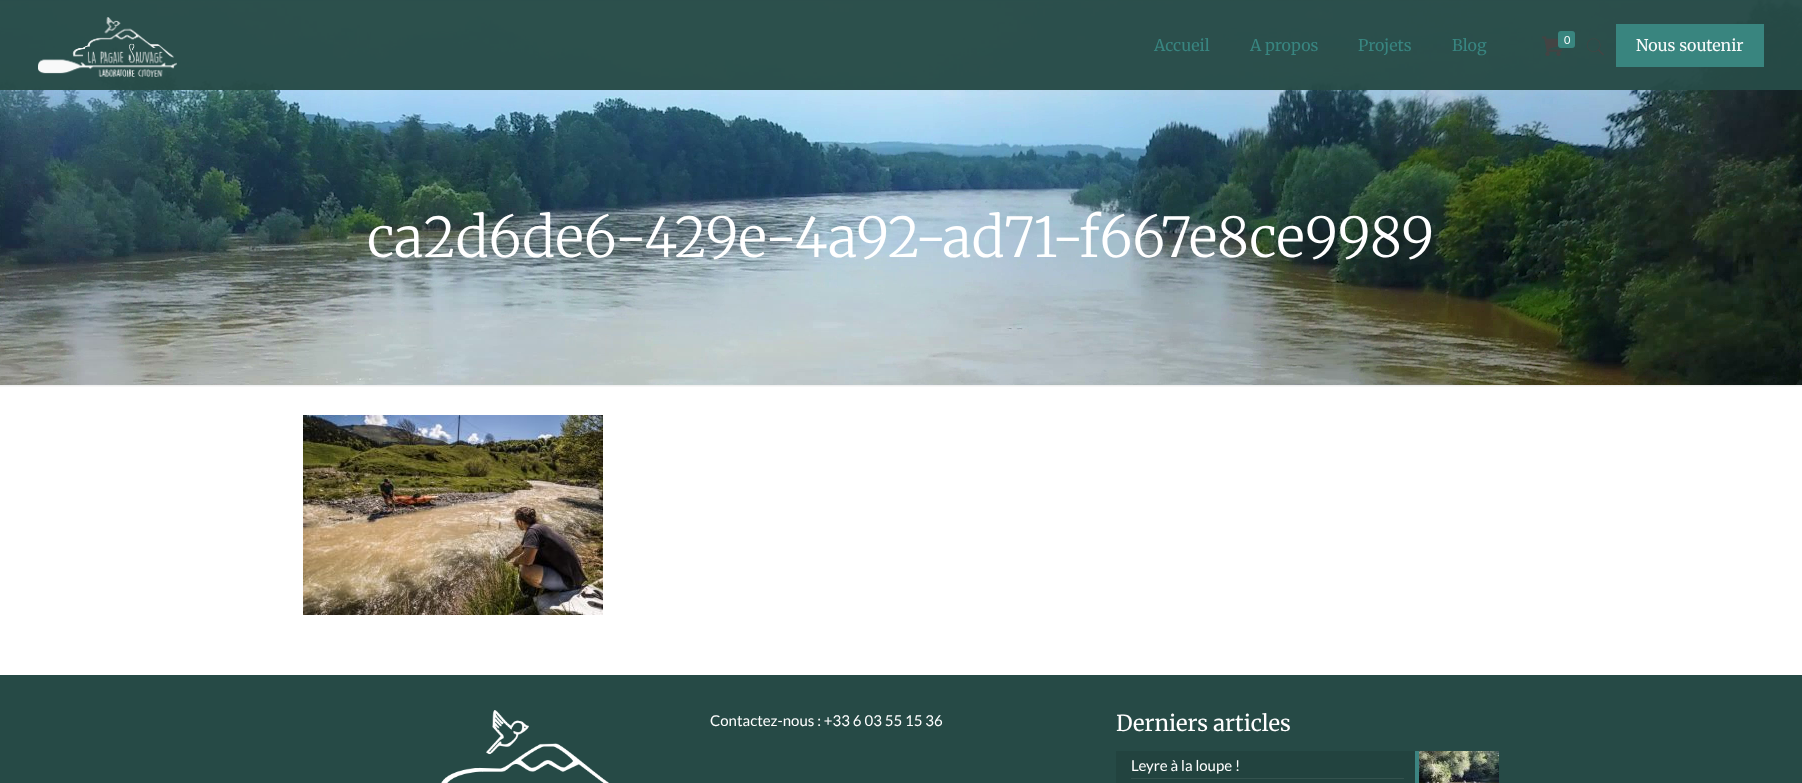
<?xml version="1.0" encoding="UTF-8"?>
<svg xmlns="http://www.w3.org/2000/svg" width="1802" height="783">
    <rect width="100%" height="100%" fill="#FFFFFF"/>
    <image x="0" y="0" width="1802" height="385" href="img_01.png"/>
    <rect x="0" y="0" width="1802" height="90" fill="#264A46" fill-opacity="0.97"/>
    <image x="38" y="17" width="139" height="60" href="img_02.png"/>
    <text x="1154" y="51" font-family="Merriweather" font-size="16" fill="#388580">Accueil</text>
    <text x="1250" y="51" font-family="Merriweather" font-size="16" fill="#388580">A propos</text>
    <text x="1358" y="51" font-family="Merriweather" font-size="16" fill="#388580">Projets</text>
    <text x="1452" y="51" font-family="Merriweather" font-size="16" fill="#388580">Blog</text>
    <image x="1542" y="36" width="20" height="20" href="img_03.png"/>
    <rect x="1558" y="31" width="17" height="17" rx="3" fill="#3A8781" fill-opacity="0.97"/>
    <text x="1564" y="44" font-family="Lato" font-size="11" fill="#F9FBFB">0</text>
    <image x="1587" y="38" width="17" height="18" href="img_04.png"/>
    <rect x="1616" y="24" width="148" height="43" fill="#3A8781" fill-opacity="0.97"/>
    <text x="1636" y="51" font-family="Merriweather" font-size="16" fill="#F9FBFB">Nous soutenir</text>
    <text x="367" y="257" font-family="Merriweather" font-size="55" font-weight="300" fill="#FFFFFF">ca2d6de6-429e-4a92-ad71-f667e8ce9989</text>
    <image x="0" y="385" width="1802" height="2" href="img_05.png"/>
    <image x="303" y="415" width="300" height="200" href="img_06.png"/>
    <rect x="0" y="675" width="1802" height="108" fill="#264A46"/>
    <image x="441" y="710" width="168" height="73" href="img_07.png"/>
    <text x="710" y="726" font-family="Lato" font-size="15" fill="#FFFFFF">Contactez-nous : +33 6 03 55 15 36</text>
    <text x="1116" y="731" font-family="Merriweather" font-size="22" fill="#FFFFFF">Derniers articles</text>
    <rect x="1116" y="751" width="299" height="32" fill="#22433F"/>
    <rect x="1131" y="778" width="273" height="1" fill="#34524E"/>
    <text x="1131" y="771" font-family="Lato" font-size="15" fill="#FFFFFF">Leyre à la loupe !</text>
    <rect x="1415" y="751" width="4" height="32" fill="#3C8481"/>
    <image x="1419" y="751" width="80" height="32" href="img_08.png"/>
</svg>
